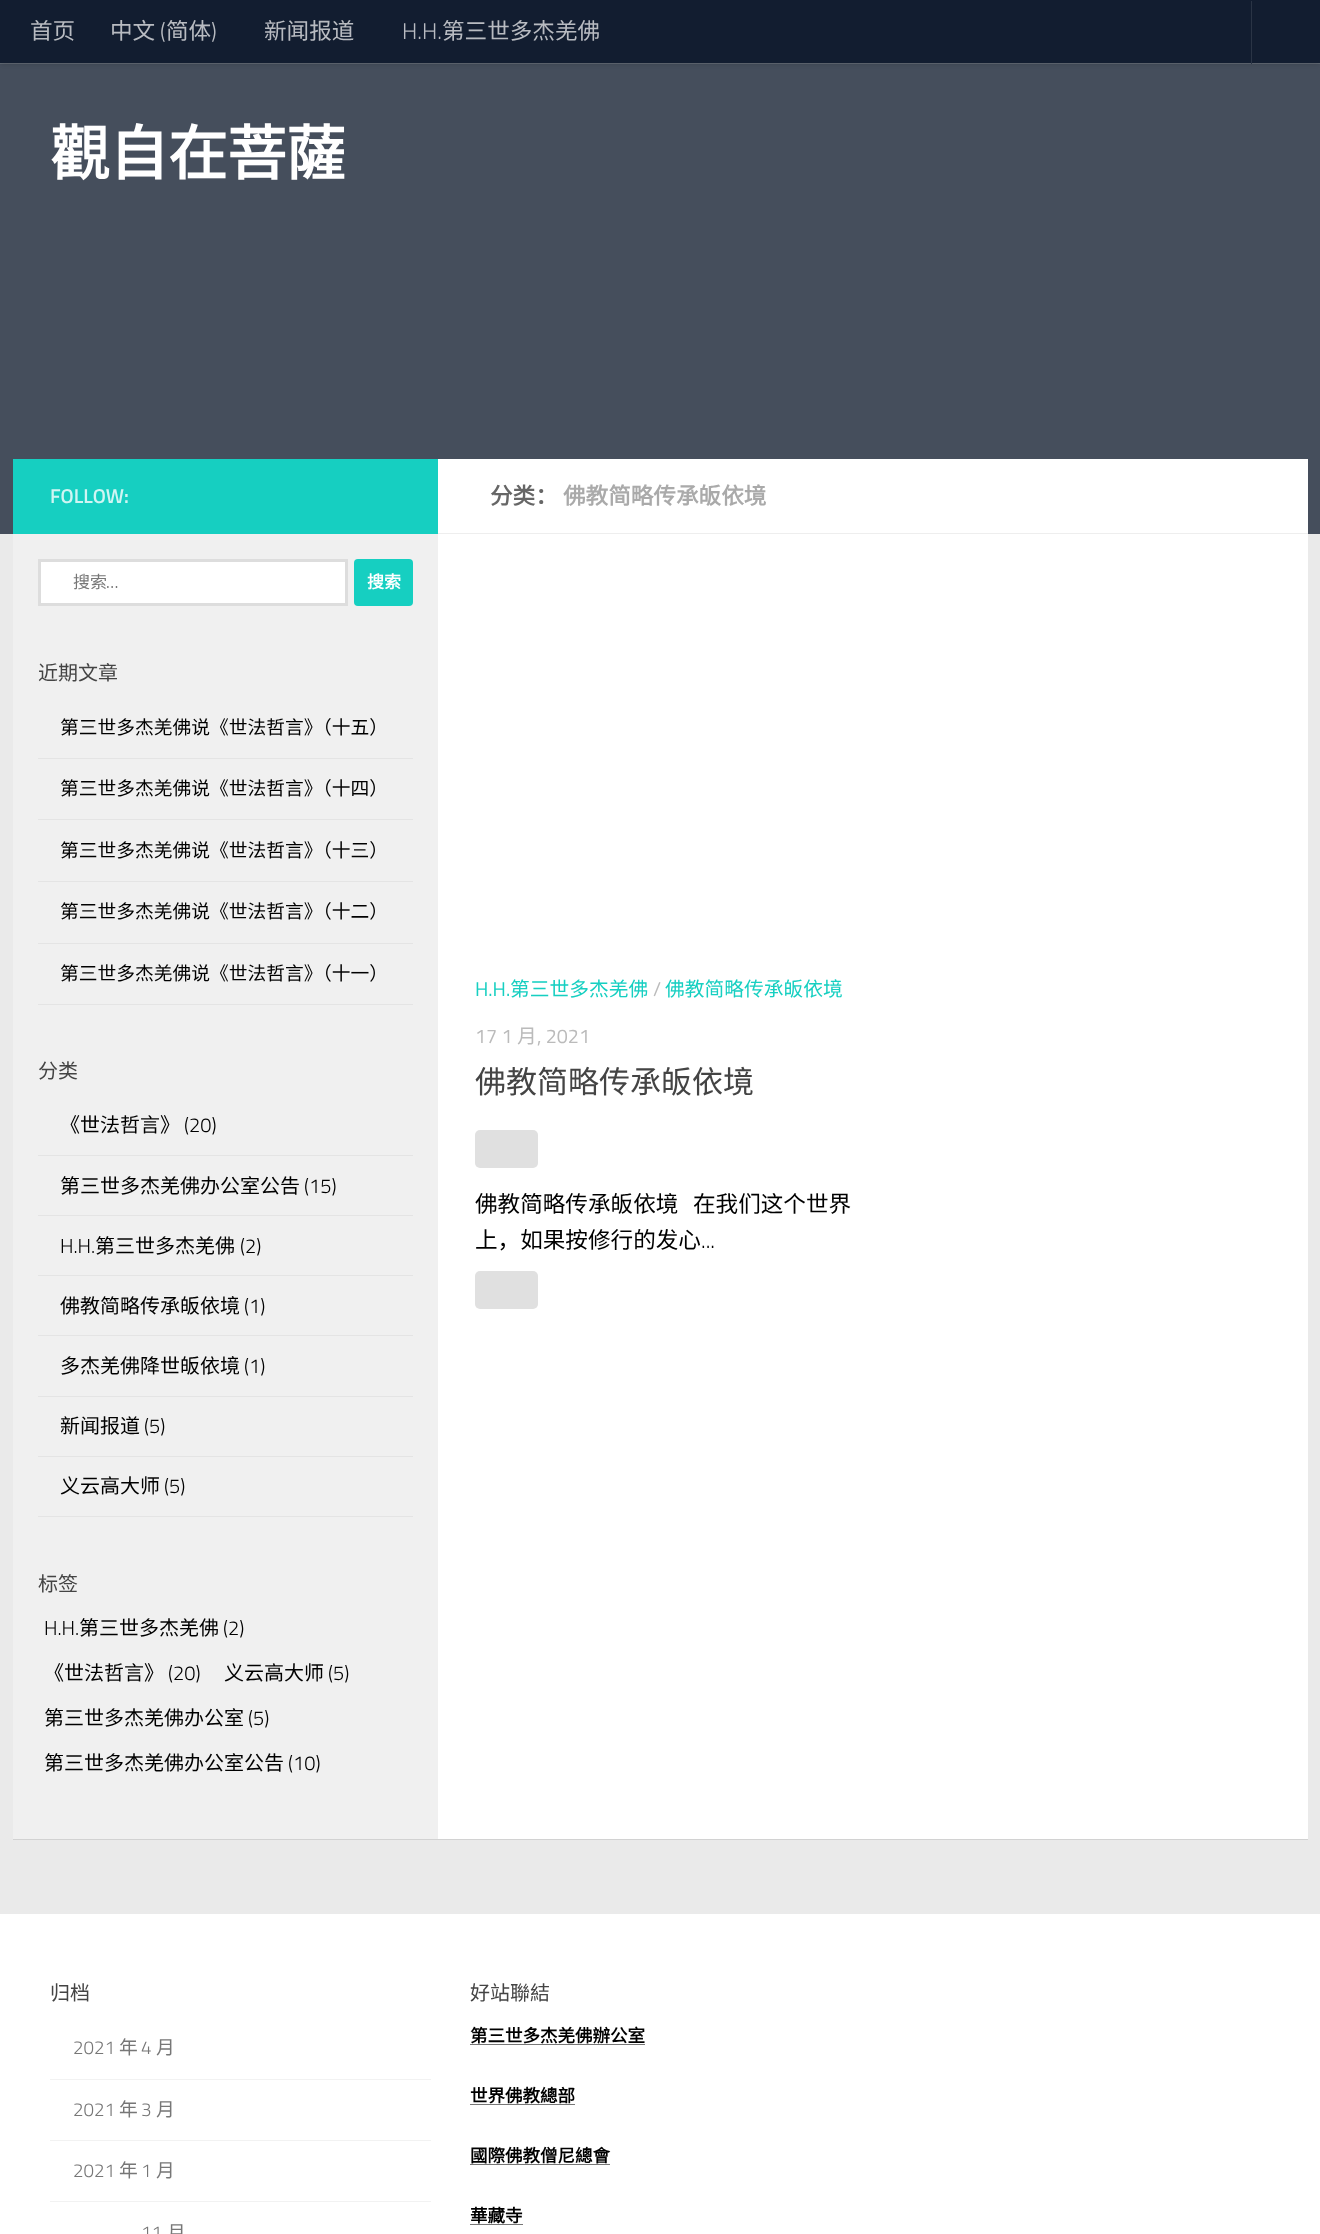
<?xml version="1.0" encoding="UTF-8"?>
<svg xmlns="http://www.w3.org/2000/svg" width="1320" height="2234">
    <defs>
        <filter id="blur1" x="-50%" y="-200%" width="200%" height="500%"><feGaussianBlur stdDeviation="0.5"/></filter>
        <filter id="blur2" x="-50%" y="-200%" width="200%" height="500%"><feGaussianBlur stdDeviation="3"/></filter>
    </defs>
    <rect width="100%" height="100%" fill="#EAEAEA"/>
    <rect x="13" y="460" width="1295" height="1380" fill="#000000" fill-opacity="0.1" filter="url(#blur1)"/>
    <rect x="0" y="64" width="1320" height="470" fill="#454E5C"/>
    <rect x="0" y="63" width="1320" height="1" fill="#616974"/>
    <rect x="0" y="0" width="1320" height="63" fill="#000000" fill-opacity="0.2" filter="url(#blur2)"/>
    <rect x="0" y="0" width="1320" height="63" fill="#121D30"/>
    <text x="30" y="39" font-family="Noto Sans CJK SC" font-size="22.6" fill="#B8BBC1">首页</text>
    <text x="110" y="39" font-family="Noto Sans CJK SC" font-size="22.6" fill="#B8BBC1">中文</text>
    <text x="160" y="39" font-family="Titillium" font-size="22.6" font-weight="300" fill="#B8BBC1">(</text>
    <text x="166" y="39" font-family="Noto Sans CJK SC" font-size="22.6" fill="#B8BBC1">简体</text>
    <text x="211" y="39" font-family="Titillium" font-size="22.6" font-weight="300" fill="#B8BBC1">)</text>
    <text x="264" y="39" font-family="Noto Sans CJK SC" font-size="22.6" fill="#B8BBC1">新闻报道</text>
    <text x="402" y="39" font-family="Titillium" font-size="22.6" font-weight="300" fill="#B8BBC1">H.H.</text>
    <text x="442" y="39" font-family="Noto Sans CJK SC" font-size="22.6" fill="#B8BBC1">第三世多杰羌佛</text>
    <path d="M 1251 1 V 64 H 1306 H 1252 V 1 H 1306 Z" fill="#2A3445"/>
    <text x="50" y="175" font-family="Noto Sans CJK SC" font-size="59.5" font-weight="700" letter-spacing="-0.5" fill="#FFFFFF">觀自在菩薩</text>
    <rect x="438" y="459" width="870" height="1380" fill="#FFFFFF"/>
    <rect x="13" y="459" width="425" height="75" fill="#16CFC1"/>
    <text x="50" y="503" font-family="Titillium" font-size="20" font-weight="600" fill="#D0F5F3">FOLLOW:</text>
    <rect x="13" y="534" width="425" height="1305" fill="#F0F0F0"/>
    <rect x="39.5" y="560.5" width="307" height="44" fill="#FFFFFF" stroke="#DDDDDD" stroke-width="3"/>
    <text x="73" y="588" font-family="Noto Sans CJK SC" font-size="17" fill="#777777">搜索</text>
    <text x="106" y="588" font-family="Titillium" font-size="17" fill="#777777">…</text>
    <rect x="354" y="559" width="59" height="47" rx="4" fill="#16CFC1"/>
    <text x="367" y="588" font-family="Noto Sans CJK SC" font-size="17" font-weight="700" fill="#FFFFFF">搜索</text>
    <text x="38" y="680" font-family="Noto Sans CJK SC" font-size="20" fill="#444444">近期文章</text>
    <rect x="38" y="758" width="375" height="1" fill="#E4E4E4"/>
    <text x="60" y="734" font-family="Noto Sans CJK SC" font-size="18.75" fill="#000000">第三世多杰羌佛说《世法哲言》（十五）</text>
    <rect x="38" y="819" width="375" height="1" fill="#E4E4E4"/>
    <text x="60" y="795" font-family="Noto Sans CJK SC" font-size="18.75" fill="#000000">第三世多杰羌佛说《世法哲言》（十四）</text>
    <rect x="38" y="881" width="375" height="1" fill="#E4E4E4"/>
    <text x="60" y="857" font-family="Noto Sans CJK SC" font-size="18.75" fill="#000000">第三世多杰羌佛说《世法哲言》（十三）</text>
    <rect x="38" y="943" width="375" height="1" fill="#E4E4E4"/>
    <text x="60" y="918" font-family="Noto Sans CJK SC" font-size="18.75" fill="#000000">第三世多杰羌佛说《世法哲言》（十二）</text>
    <rect x="38" y="1004" width="375" height="1" fill="#E4E4E4"/>
    <text x="60" y="980" font-family="Noto Sans CJK SC" font-size="18.75" fill="#000000">第三世多杰羌佛说《世法哲言》（十一）</text>
    <text x="38" y="1078" font-family="Noto Sans CJK SC" font-size="20" fill="#444444">分类</text>
    <rect x="38" y="1155" width="375" height="1" fill="#E4E4E4"/>
    <text x="60" y="1132" font-family="Noto Sans CJK SC" font-size="20" fill="#000000">《世法哲言》</text>
    <text x="184" y="1132" font-family="Titillium" font-size="20" font-weight="300" fill="#000000">(20)</text>
    <rect x="38" y="1215" width="375" height="1" fill="#E4E4E4"/>
    <text x="60" y="1193" font-family="Noto Sans CJK SC" font-size="20" fill="#000000">第三世多杰羌佛办公室公告</text>
    <text x="304" y="1193" font-family="Titillium" font-size="20" font-weight="300" fill="#000000">(15)</text>
    <rect x="38" y="1275" width="375" height="1" fill="#E4E4E4"/>
    <text x="60" y="1253" font-family="Titillium" font-size="20" font-weight="300" fill="#000000">H.H.</text>
    <text x="95" y="1253" font-family="Noto Sans CJK SC" font-size="20" fill="#000000">第三世多杰羌佛</text>
    <text x="240" y="1253" font-family="Titillium" font-size="20" font-weight="300" fill="#000000">(2)</text>
    <rect x="38" y="1335" width="375" height="1" fill="#E4E4E4"/>
    <text x="60" y="1313" font-family="Noto Sans CJK SC" font-size="20" fill="#000000">佛教简略传承皈依境</text>
    <text x="244" y="1313" font-family="Titillium" font-size="20" font-weight="300" fill="#000000">(1)</text>
    <rect x="38" y="1396" width="375" height="1" fill="#E4E4E4"/>
    <text x="60" y="1373" font-family="Noto Sans CJK SC" font-size="20" fill="#000000">多杰羌佛降世皈依境</text>
    <text x="244" y="1373" font-family="Titillium" font-size="20" font-weight="300" fill="#000000">(1)</text>
    <rect x="38" y="1456" width="375" height="1" fill="#E4E4E4"/>
    <text x="60" y="1433" font-family="Noto Sans CJK SC" font-size="20" fill="#000000">新闻报道</text>
    <text x="144" y="1433" font-family="Titillium" font-size="20" font-weight="300" fill="#000000">(5)</text>
    <rect x="38" y="1516" width="375" height="1" fill="#E4E4E4"/>
    <text x="60" y="1493" font-family="Noto Sans CJK SC" font-size="20" fill="#000000">义云高大师</text>
    <text x="164" y="1493" font-family="Titillium" font-size="20" font-weight="300" fill="#000000">(5)</text>
    <text x="38" y="1591" font-family="Noto Sans CJK SC" font-size="20" fill="#444444">标签</text>
    <text x="44" y="1635" font-family="Titillium" font-size="20" font-weight="300" fill="#000000">H.H.</text>
    <text x="79" y="1635" font-family="Noto Sans CJK SC" font-size="20" fill="#000000">第三世多杰羌佛</text>
    <text x="223" y="1635" font-family="Titillium" font-size="20" font-weight="300" fill="#000000">(2)</text>
    <text x="44" y="1680" font-family="Noto Sans CJK SC" font-size="20" fill="#000000">《世法哲言》</text>
    <text x="168" y="1680" font-family="Titillium" font-size="20" font-weight="300" fill="#000000">(20)</text>
    <text x="224" y="1680" font-family="Noto Sans CJK SC" font-size="20" fill="#000000">义云高大师</text>
    <text x="328" y="1680" font-family="Titillium" font-size="20" font-weight="300" fill="#000000">(5)</text>
    <text x="44" y="1725" font-family="Noto Sans CJK SC" font-size="20" fill="#000000">第三世多杰羌佛办公室</text>
    <text x="248" y="1725" font-family="Titillium" font-size="20" font-weight="300" fill="#000000">(5)</text>
    <text x="44" y="1770" font-family="Noto Sans CJK SC" font-size="20" fill="#000000">第三世多杰羌佛办公室公告</text>
    <text x="288" y="1770" font-family="Titillium" font-size="20" font-weight="300" fill="#000000">(10)</text>
    <rect x="438" y="533" width="870" height="1" fill="#EEEEEE"/>
    <text x="490" y="504" font-family="Noto Sans CJK SC" font-size="22.6" font-weight="700" fill="#666666">分类：</text>
    <text x="563" y="504" font-family="Noto Sans CJK SC" font-size="22.6" font-weight="700" fill="#AAAAAA">佛教简略传承皈依境</text>
    <text x="475" y="996" font-family="Titillium" font-size="19.75" fill="#16CFC1">H.H.</text>
    <text x="510" y="996" font-family="Noto Sans CJK SC" font-size="19.75" fill="#16CFC1">第三世多杰羌佛</text>
    <text x="653" y="996" font-family="Titillium" font-size="19.75" fill="#BBBBBB">/</text>
    <text x="665" y="996" font-family="Noto Sans CJK SC" font-size="19.75" fill="#16CFC1">佛教简略传承皈依境</text>
    <text x="475" y="1043" font-family="Titillium" font-size="19.75" fill="#BBBBBB">17 1</text>
    <text x="517" y="1043" font-family="Noto Sans CJK SC" font-size="19.75" fill="#BBBBBB">月</text>
    <text x="537" y="1043" font-family="Titillium" font-size="19.75" fill="#BBBBBB">, 2021</text>
    <text x="475" y="1093" font-family="Noto Sans CJK SC" font-size="31" fill="#444444">佛教简略传承皈依境</text>
    <rect x="475" y="1130" width="63" height="38" rx="5" fill="#E0E0E0"/>
    <text x="475" y="1212" font-family="Noto Sans CJK SC" font-size="22.6" fill="#000000">佛教简略传承皈依境</text>
    <text x="693" y="1212" font-family="Noto Sans CJK SC" font-size="22.6" fill="#000000">在我们这个世界</text>
    <text x="475" y="1248" font-family="Noto Sans CJK SC" font-size="22.6" fill="#000000">上，如果按修行的发心</text>
    <text x="701" y="1248" font-family="Titillium" font-size="22.6" font-weight="300" fill="#000000">...</text>
    <rect x="475" y="1271" width="63" height="38" rx="5" fill="#E0E0E0"/>
    <rect x="0" y="1914" width="1320" height="320" fill="#FFFFFF"/>
    <text x="50" y="2000" font-family="Noto Sans CJK SC" font-size="20" fill="#444444">归档</text>
    <rect x="50" y="2079" width="381" height="1" fill="#F2F2F2"/>
    <text x="73" y="2054" font-family="Titillium" font-size="18.75" font-weight="300" fill="#777777">2021</text>
    <text x="119" y="2054" font-family="Noto Sans CJK SC" font-size="18.75" fill="#777777">年</text>
    <text x="141" y="2054" font-family="Titillium" font-size="18.75" font-weight="300" fill="#777777">4</text>
    <text x="156" y="2054" font-family="Noto Sans CJK SC" font-size="18.75" fill="#777777">月</text>
    <rect x="50" y="2140" width="381" height="1" fill="#F2F2F2"/>
    <text x="73" y="2116" font-family="Titillium" font-size="18.75" font-weight="300" fill="#777777">2021</text>
    <text x="119" y="2116" font-family="Noto Sans CJK SC" font-size="18.75" fill="#777777">年</text>
    <text x="141" y="2116" font-family="Titillium" font-size="18.75" font-weight="300" fill="#777777">3</text>
    <text x="156" y="2116" font-family="Noto Sans CJK SC" font-size="18.75" fill="#777777">月</text>
    <rect x="50" y="2201" width="381" height="1" fill="#F2F2F2"/>
    <text x="73" y="2177" font-family="Titillium" font-size="18.75" font-weight="300" fill="#777777">2021</text>
    <text x="119" y="2177" font-family="Noto Sans CJK SC" font-size="18.75" fill="#777777">年</text>
    <text x="141" y="2177" font-family="Titillium" font-size="18.75" font-weight="300" fill="#777777">1</text>
    <text x="156" y="2177" font-family="Noto Sans CJK SC" font-size="18.75" fill="#777777">月</text>
    <text x="141" y="2239" font-family="Titillium" font-size="18.75" font-weight="300" fill="#777777">11</text>
    <text x="167" y="2239" font-family="Noto Sans CJK SC" font-size="18.75" fill="#777777">月</text>
    <text x="470" y="2000" font-family="Noto Sans CJK SC" font-size="20" fill="#444444">好站聯結</text>
    <text x="470" y="2042" font-family="Noto Sans CJK SC" font-size="17.5" font-weight="700" fill="#000000">第三世多杰羌佛辦公室</text>
    <rect x="470" y="2044" width="175" height="1" fill="#777777"/>
    <text x="470" y="2102" font-family="Noto Sans CJK SC" font-size="17.5" font-weight="700" fill="#000000">世界佛教總部</text>
    <rect x="470" y="2104" width="105" height="1" fill="#777777"/>
    <text x="470" y="2162" font-family="Noto Sans CJK SC" font-size="17.5" font-weight="700" fill="#000000">國際佛教僧尼總會</text>
    <rect x="470" y="2164" width="140" height="1" fill="#777777"/>
    <text x="470" y="2222" font-family="Noto Sans CJK SC" font-size="17.5" font-weight="700" fill="#000000">華藏寺</text>
    <rect x="470" y="2224" width="53" height="1" fill="#777777"/>
</svg>
